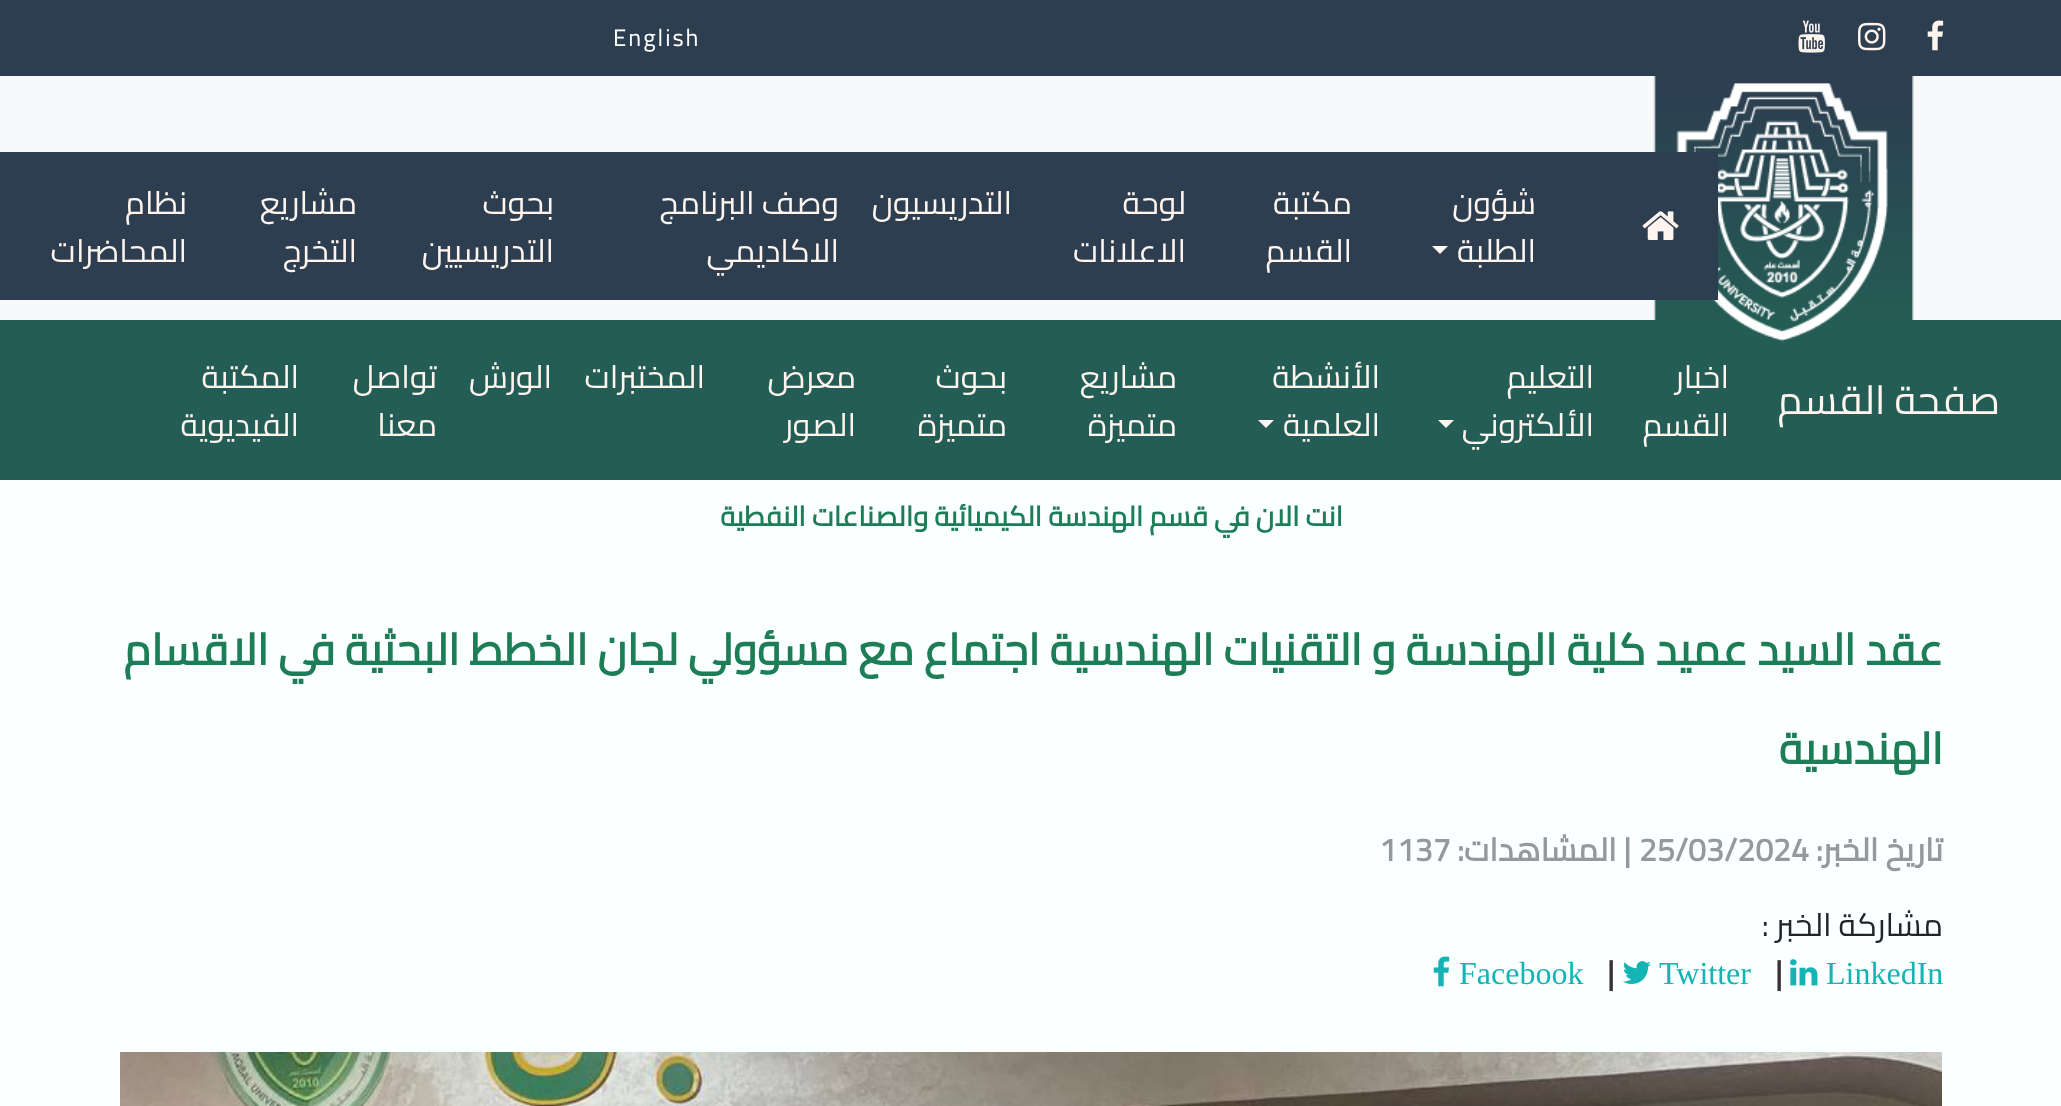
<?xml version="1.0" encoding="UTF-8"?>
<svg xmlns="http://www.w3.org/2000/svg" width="2061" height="1106">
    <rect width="100%" height="100%" fill="#FAFFFF"/>
    <rect x="0" y="0" width="2061" height="76" fill="#2C3E50"/>
    <image x="1927" y="20" width="17" height="31" href="img_01.png"/>
    <image x="1858" y="22" width="28" height="29" href="img_02.png"/>
    <image x="1798" y="20" width="27" height="33" href="img_03.png"/>
    <text x="613" y="46" font-family="Cairo" font-size="24" letter-spacing="2" fill="#FFFFFF">English</text>
    <rect x="0" y="76" width="2061" height="244" fill="#F8F9FA"/>
    <rect x="0" y="320" width="2061" height="160" fill="#245D55"/>
    <image x="1653" y="76" width="261" height="266" href="img_04.png"/>
    <rect x="0" y="152" width="1718" height="148" fill="#2C3E50"/>
    <image x="1642" y="211" width="37" height="29" href="img_05.png"/>
    <text font-family="Cairo" font-size="32" direction="rtl" fill="#FFF5EE">
        <tspan x="1536" y="214">شؤون</tspan>
        <tspan x="1536" y="262">الطلبة</tspan>
    </text>
    <path d="M 1432 246 H 1448 L 1440 254 Z" fill="#FFF5EE"/>
    <text font-family="Cairo" font-size="32" direction="rtl" fill="#FFF5EE">
        <tspan x="1352" y="214">مكتبة</tspan>
        <tspan x="1352" y="262">القسم</tspan>
    </text>
    <text font-family="Cairo" font-size="32" direction="rtl" fill="#FFF5EE">
        <tspan x="1186" y="214">لوحة</tspan>
        <tspan x="1186" y="262">الاعلانات</tspan>
    </text>
    <text x="1012" y="214" font-family="Cairo" font-size="32" direction="rtl" fill="#FFF5EE">التدريسيون</text>
    <text font-family="Cairo" font-size="32" direction="rtl" fill="#FFF5EE">
        <tspan x="839" y="214">وصف البرنامج</tspan>
        <tspan x="839" y="262">الاكاديمي</tspan>
    </text>
    <text font-family="Cairo" font-size="32" direction="rtl" fill="#FFF5EE">
        <tspan x="554" y="214">بحوث</tspan>
        <tspan x="554" y="262">التدريسيين</tspan>
    </text>
    <text font-family="Cairo" font-size="32" direction="rtl" fill="#FFF5EE">
        <tspan x="357" y="214">مشاريع</tspan>
        <tspan x="357" y="262">التخرج</tspan>
    </text>
    <text font-family="Cairo" font-size="32" direction="rtl" fill="#FFF5EE">
        <tspan x="187" y="214">نظام</tspan>
        <tspan x="187" y="262">المحاضرات</tspan>
    </text>
    <text x="2000" y="414" font-family="Cairo" font-size="40" direction="rtl" fill="#FFF5EE">صفحة القسم</text>
    <text font-family="Cairo" font-size="32" direction="rtl" fill="#FFF5EE">
        <tspan x="1729" y="388">اخبار</tspan>
        <tspan x="1729" y="436">القسم</tspan>
    </text>
    <text font-family="Cairo" font-size="32" direction="rtl" fill="#FFF5EE">
        <tspan x="1594" y="388">التعليم</tspan>
        <tspan x="1594" y="436">الألكتروني</tspan>
    </text>
    <path d="M 1438 420 H 1454 L 1446 428 Z" fill="#FFF5EE"/>
    <text font-family="Cairo" font-size="32" direction="rtl" fill="#FFF5EE">
        <tspan x="1380" y="388">الأنشطة</tspan>
        <tspan x="1380" y="436">العلمية</tspan>
    </text>
    <path d="M 1258 420 H 1274 L 1266 428 Z" fill="#FFF5EE"/>
    <text font-family="Cairo" font-size="32" direction="rtl" fill="#FFF5EE">
        <tspan x="1177" y="388">مشاريع</tspan>
        <tspan x="1177" y="436">متميزة</tspan>
    </text>
    <text font-family="Cairo" font-size="32" direction="rtl" fill="#FFF5EE">
        <tspan x="1007" y="388">بحوث</tspan>
        <tspan x="1007" y="436">متميزة</tspan>
    </text>
    <text font-family="Cairo" font-size="32" direction="rtl" fill="#FFF5EE">
        <tspan x="856" y="388">معرض</tspan>
        <tspan x="856" y="436">الصور</tspan>
    </text>
    <text x="705" y="388" font-family="Cairo" font-size="32" direction="rtl" fill="#FFF5EE">المختبرات</text>
    <text x="552" y="388" font-family="Cairo" font-size="32" direction="rtl" fill="#FFF5EE">الورش</text>
    <text font-family="Cairo" font-size="32" direction="rtl" fill="#FFF5EE">
        <tspan x="437" y="388">تواصل</tspan>
        <tspan x="437" y="436">معنا</tspan>
    </text>
    <text font-family="Cairo" font-size="32" direction="rtl" fill="#FFF5EE">
        <tspan x="299" y="388">المكتبة</tspan>
        <tspan x="299" y="436">الفيديوية</tspan>
    </text>
    <text x="1343" y="526" font-family="Cairo" font-size="27.65" font-weight="700" direction="rtl" fill="#1D7D57">انت الان في قسم الهندسة الكيميائية والصناعات النفطية</text>
    <text x="1943" y="665" font-family="Cairo" font-size="44" font-weight="700" direction="rtl" fill="#1D7D57">عقد السيد عميد كلية الهندسة و التقنيات الهندسية اجتماع مع مسؤولي لجان الخطط البحثية في الاقسام</text>
    <text x="1943" y="764" font-family="Cairo" font-size="44" font-weight="700" direction="rtl" fill="#1D7D57">الهندسية</text>
    <text x="1943" y="861" font-family="Cairo" font-size="32" font-weight="700" direction="rtl" fill="#969999">تاريخ الخبر:</text>
    <text x="1639" y="861" font-family="Cairo" font-size="32" font-weight="700" fill="#969999">25/03/2024</text>
    <text x="1631" y="861" font-family="Cairo" font-size="32" font-weight="700" direction="rtl" fill="#969999">| المشاهدات:</text>
    <text x="1379" y="861" font-family="Cairo" font-size="32" font-weight="700" fill="#969999">1137</text>
    <text x="1943" y="936" font-family="Cairo" font-size="32" direction="rtl" fill="#212529">مشاركة الخبر :</text>
    <text x="1826" y="984" font-family="Liberation Serif" font-size="32" fill="#14B4B5">LinkedIn</text>
    <image x="1790" y="959" width="28" height="27" href="img_06.png"/>
    <text x="1775" y="984" font-family="Cairo" font-size="32" font-weight="700" fill="#373331">|</text>
    <text x="1659" y="984" font-family="Liberation Serif" font-size="32" fill="#14B4B5">Twitter</text>
    <image x="1623" y="961" width="28" height="23" href="img_07.png"/>
    <text x="1607" y="984" font-family="Cairo" font-size="32" font-weight="700" fill="#373331">|</text>
    <text x="1459" y="984" font-family="Liberation Serif" font-size="32" fill="#14B4B5">Facebook</text>
    <image x="1433" y="956" width="17" height="31" href="img_08.png"/>
    <image x="120" y="1052" width="1822" height="54" href="img_09.png"/>
</svg>
